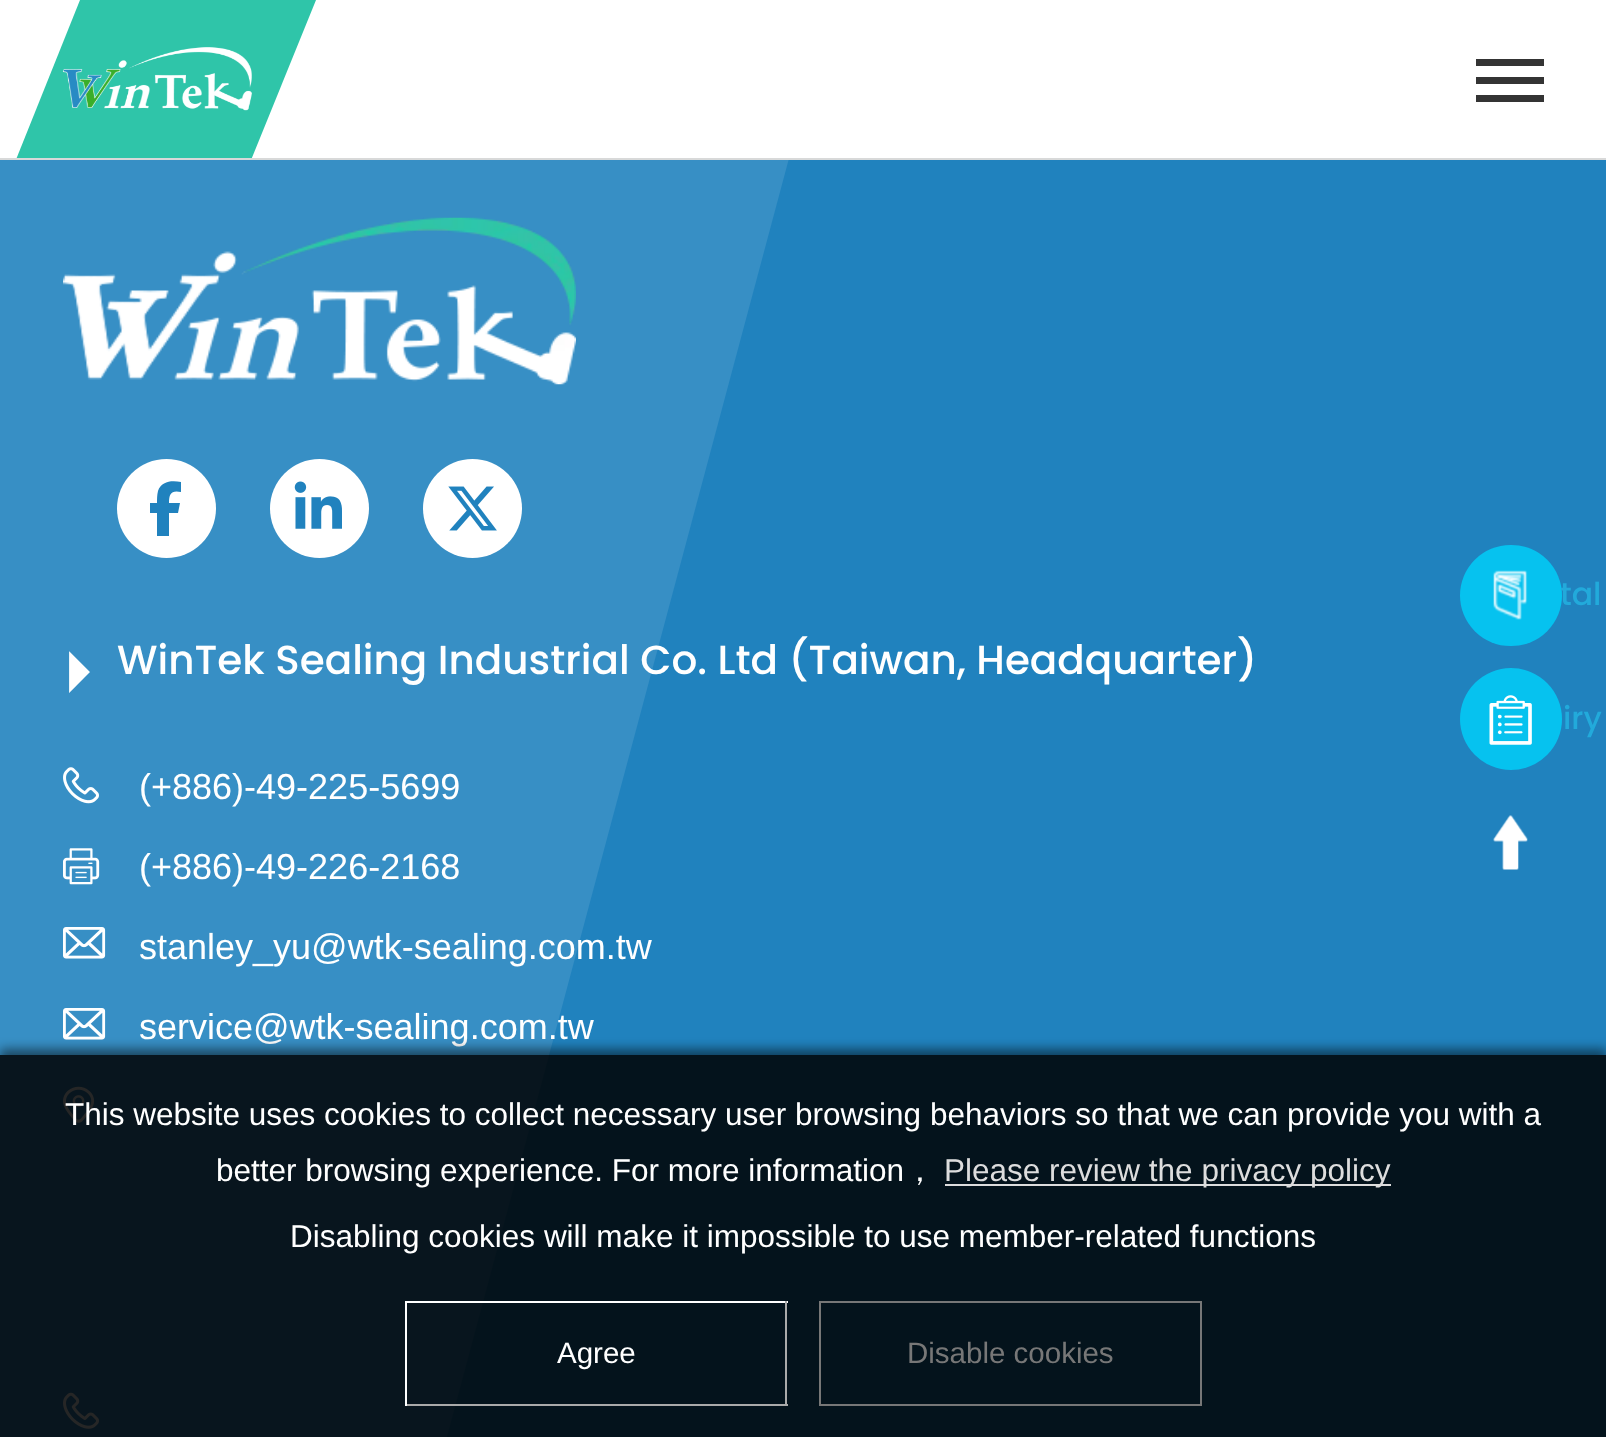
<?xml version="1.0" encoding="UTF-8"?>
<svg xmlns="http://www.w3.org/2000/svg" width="1606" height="1437">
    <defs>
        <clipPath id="clip1"><rect x="0" y="0" width="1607" height="158"/></clipPath>
        <clipPath id="clip2"><path d="M 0 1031 H 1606 V 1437 H 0 Z M 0 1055 H 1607 V 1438 H 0 Z" clip-rule="evenodd"/></clipPath>
        <filter id="blur1" x="-50%" y="-200%" width="200%" height="500%"><feGaussianBlur stdDeviation="5.5"/></filter>
    </defs>
    <rect width="100%" height="100%" fill="#2082BE"/>
    <path d="M 0 106 V 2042 H 285 L 803 106 Z" fill="#378FC5"/>
    <rect x="0" y="0" width="1606" height="158" fill="#FFFFFF"/>
    <rect x="0" y="158" width="1606" height="2" fill="#D8D9D9"/>
    <g clip-path="url(#clip1)">
        <path d="M 80 0 H 316 L 234 202 H -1 Z" fill="#2FC5A9"/>
    </g>
    <image x="62" y="47" width="190" height="64" href="img_01.png"/>
    <rect x="1476" y="59" width="68" height="7" fill="#343434"/>
    <rect x="1476" y="77" width="68" height="7" fill="#343434"/>
    <rect x="1476" y="95" width="68" height="7" fill="#343434"/>
    <image x="63" y="217" width="513" height="168" href="img_02.png"/>
    <circle cx="166.5" cy="508.5" r="49.5" fill="#FFFFFF"/>
    <path d="M 157 513 V 536 V 513 V 536 H 169 V 513 H 178 L 180 503 H 169 C 169 494 171 490 181 492 V 482 C 172 480 161 481 158 491 C 157 495 157 499 157 503 H 150 V 513 Z" fill="#2082BE"/>
    <circle cx="319.5" cy="508.5" r="49.5" fill="#FFFFFF"/>
    <image x="294" y="481" width="48" height="48" href="img_03.png"/>
    <circle cx="472.5" cy="508.5" r="49.5" fill="#FFFFFF"/>
    <image x="448" y="486" width="49" height="45" href="img_04.png"/>
    <text x="63" y="692" font-family="FreeSans" font-size="58" fill="#FFFFFF">⏵</text>
    <text x="117" y="674" font-family="Poppins" font-size="40.5" font-weight="500" fill="#FFFFFF">WinTek Sealing Industrial Co. Ltd (Taiwan, Headquarter)</text>
    <image x="63" y="767" width="36" height="37" href="img_05.png"/>
    <text x="139" y="799" font-family="Liberation Sans" font-size="36" fill="#FFFFFF">(+886)-49-225-5699</text>
    <image x="63" y="848" width="37" height="37" href="img_06.png"/>
    <text x="139" y="879" font-family="Liberation Sans" font-size="36" fill="#FFFFFF">(+886)-49-226-2168</text>
    <image x="63" y="927" width="43" height="32" href="img_07.png"/>
    <text x="139" y="959" font-family="Liberation Sans" font-size="36" fill="#FFFFFF">stanley_yu@wtk-sealing.com.tw</text>
    <image x="63" y="1008" width="43" height="32" href="img_07.png"/>
    <text x="139" y="1039" font-family="Liberation Sans" font-size="36" fill="#FFFFFF">service@wtk-sealing.com.tw</text>
    <image x="63" y="1086" width="32" height="37" href="img_08.png"/>
    <image x="63" y="1392" width="36" height="37" href="img_09.png"/>
    <rect x="1460" y="545" width="102" height="101" rx="50.5" fill="#06C2EF"/>
    <image x="1493" y="570" width="35" height="50" href="img_10.png"/>
    <text x="1560" y="605" font-family="Poppins" font-size="31.5" font-weight="500" fill="#22AADB">tal</text>
    <circle cx="1511" cy="719" r="51" fill="#06C2EF"/>
    <image x="1489" y="695" width="43" height="50" href="img_11.png"/>
    <text x="1563" y="729" font-family="Poppins" font-size="31.5" font-weight="500" fill="#22AADB">iry</text>
    <image x="1493" y="815" width="35" height="55" href="img_12.png"/>
    <g clip-path="url(#clip2)">
        <rect x="0" y="1049" width="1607" height="382" fill="#000000" fill-opacity="0.5" filter="url(#blur1)"/>
    </g>
    <rect x="0" y="1055" width="1606" height="382" fill="#000000" fill-opacity="0.85"/>
    <text x="65" y="1125" font-family="Liberation Sans" font-size="31.5" fill="#FFFFFF">This website uses cookies to collect necessary user browsing behaviors so that we can provide you with a</text>
    <text x="216" y="1181" font-family="Liberation Sans" font-size="31.5" fill="#FFFFFF">better browsing experience. For more information</text>
    <text x="904" y="1181" font-family="WenQuanYi Zen Hei" font-size="31.5" font-weight="500" fill="#FFFFFF">，</text>
    <rect x="945" y="1184" width="446" height="2" fill="#DDDDDD"/>
    <text x="944" y="1181" font-family="Liberation Sans" font-size="31.5" fill="#DDDDDD">Please review the privacy policy</text>
    <text x="290" y="1247" font-family="Liberation Sans" font-size="31.5" fill="#FFFFFF">Disabling cookies will make it impossible to use member-related functions</text>
    <rect x="405" y="1301" width="383" height="2" fill="#FFFFFF"/>
    <rect x="785" y="1301" width="2" height="105" fill="#AAAAAA"/>
    <rect x="405" y="1404" width="383" height="2" fill="#AAAAAA"/>
    <rect x="405" y="1301" width="2" height="105" fill="#FFFFFF"/>
    <text x="557" y="1363" font-family="Liberation Sans" font-size="29.5" fill="#FFFFFF">Agree</text>
    <rect x="820" y="1302" width="381" height="103" fill="none" stroke="#777777" stroke-width="2"/>
    <text x="907" y="1363" font-family="Liberation Sans" font-size="29.5" fill="#777777">Disable cookies</text>
</svg>
